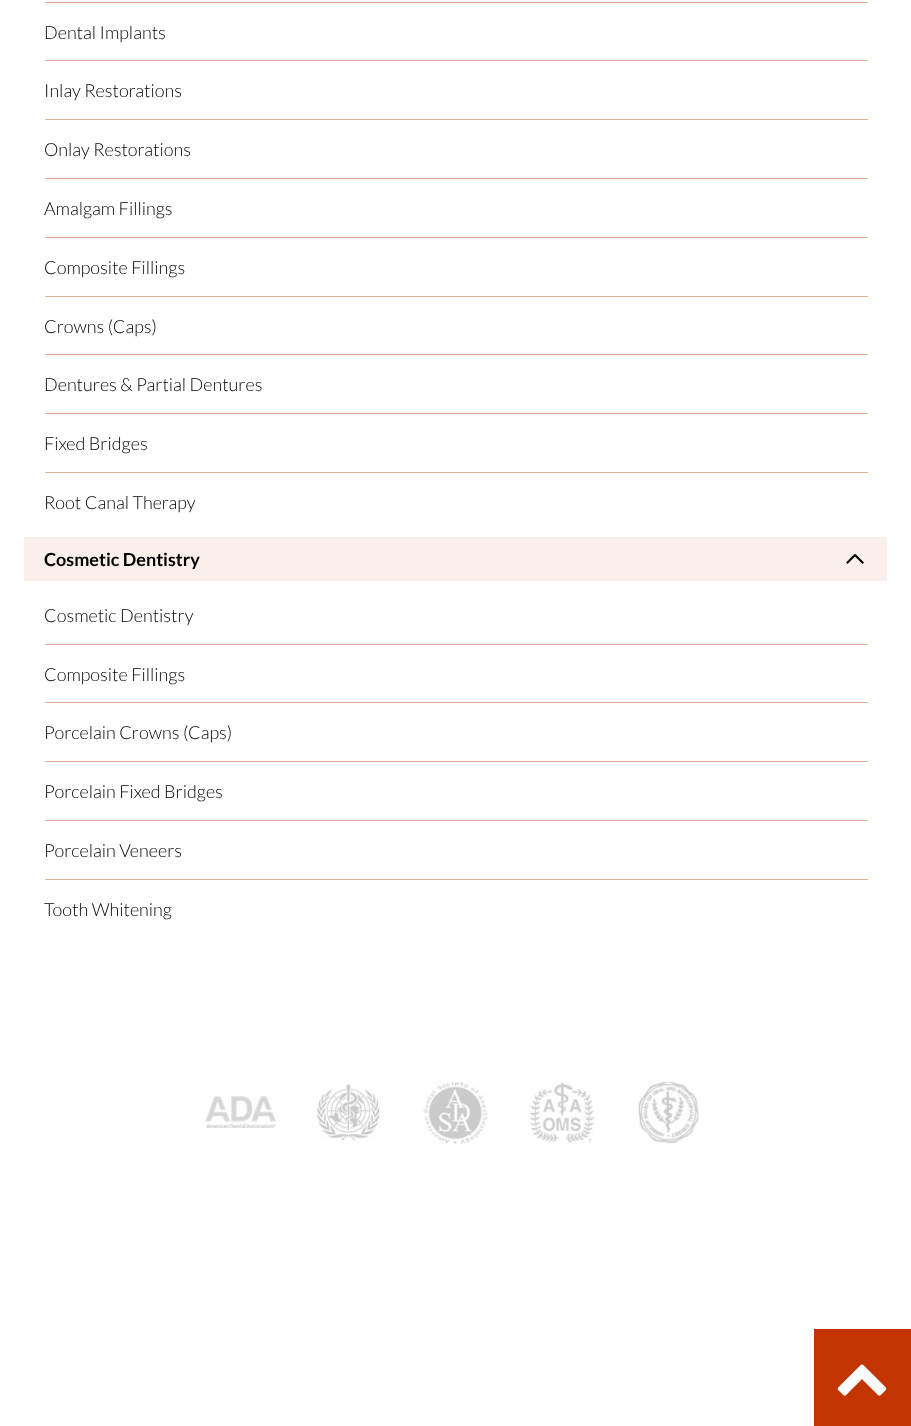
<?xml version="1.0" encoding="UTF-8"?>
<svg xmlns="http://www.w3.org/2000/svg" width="911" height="1426">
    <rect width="100%" height="100%" fill="#FFFFFF"/>
    <rect x="45" y="2" width="823" height="1" fill="#E7AE99"/>
    <text x="44" y="39" font-family="Lato" font-size="18" font-weight="300" fill="#000000">Dental Implants</text>
    <rect x="45" y="60" width="823" height="1" fill="#E7AE99"/>
    <text x="44" y="97" font-family="Lato" font-size="18" font-weight="300" fill="#000000">Inlay Restorations</text>
    <rect x="45" y="119" width="823" height="1" fill="#E7AE99"/>
    <text x="44" y="156" font-family="Lato" font-size="18" font-weight="300" fill="#000000">Onlay Restorations</text>
    <rect x="45" y="178" width="823" height="1" fill="#E7AE99"/>
    <text x="44" y="215" font-family="Lato" font-size="18" font-weight="300" fill="#000000">Amalgam Fillings</text>
    <rect x="45" y="237" width="823" height="1" fill="#E7AE99"/>
    <text x="44" y="274" font-family="Lato" font-size="18" font-weight="300" fill="#000000">Composite Fillings</text>
    <rect x="45" y="296" width="823" height="1" fill="#E7AE99"/>
    <text x="44" y="333" font-family="Lato" font-size="18" font-weight="300" fill="#000000">Crowns (Caps)</text>
    <rect x="45" y="354" width="823" height="1" fill="#E7AE99"/>
    <text x="44" y="391" font-family="Lato" font-size="18" font-weight="300" fill="#000000">Dentures &amp; Partial Dentures</text>
    <rect x="45" y="413" width="823" height="1" fill="#E7AE99"/>
    <text x="44" y="450" font-family="Lato" font-size="18" font-weight="300" fill="#000000">Fixed Bridges</text>
    <rect x="45" y="472" width="823" height="1" fill="#E7AE99"/>
    <text x="44" y="509" font-family="Lato" font-size="18" font-weight="300" fill="#000000">Root Canal Therapy</text>
    <rect x="24" y="537" width="863" height="44" fill="#FAEFEB"/>
    <text x="44" y="566" font-family="Lato" font-size="18" font-weight="700" fill="#000000">Cosmetic Dentistry</text>
    <path d="M 846 562.5 L 854.5 554 L 856 555.5 L 847.5 564 Z" fill="#000000"/>
    <path d="M 855.5 554 L 864 562.5 L 862.5 564 L 854 555.5 Z" fill="#000000"/>
    <text x="44" y="622" font-family="Lato" font-size="18" font-weight="300" fill="#000000">Cosmetic Dentistry</text>
    <rect x="45" y="644" width="823" height="1" fill="#E7AE99"/>
    <text x="44" y="681" font-family="Lato" font-size="18" font-weight="300" fill="#000000">Composite Fillings</text>
    <rect x="45" y="702" width="823" height="1" fill="#E7AE99"/>
    <text x="44" y="739" font-family="Lato" font-size="18" font-weight="300" fill="#000000">Porcelain Crowns (Caps)</text>
    <rect x="45" y="761" width="823" height="1" fill="#E7AE99"/>
    <text x="44" y="798" font-family="Lato" font-size="18" font-weight="300" fill="#000000">Porcelain Fixed Bridges</text>
    <rect x="45" y="820" width="823" height="1" fill="#E7AE99"/>
    <text x="44" y="857" font-family="Lato" font-size="18" font-weight="300" fill="#000000">Porcelain Veneers</text>
    <rect x="45" y="879" width="823" height="1" fill="#E7AE99"/>
    <text x="44" y="916" font-family="Lato" font-size="18" font-weight="300" fill="#000000">Tooth Whitening</text>
    <image x="205" y="1096" width="72" height="33" href="img_01.png"/>
    <image x="316" y="1084" width="64" height="57" href="img_02.png"/>
    <image x="423" y="1081" width="65" height="63" href="img_03.png"/>
    <image x="526" y="1082" width="69" height="62" href="img_04.png"/>
    <image x="638" y="1081" width="61" height="63" href="img_05.png"/>
    <rect x="814" y="1329" width="97" height="97" fill="#C23500"/>
    <image x="837" y="1364" width="50" height="32" href="img_06.png"/>
</svg>
